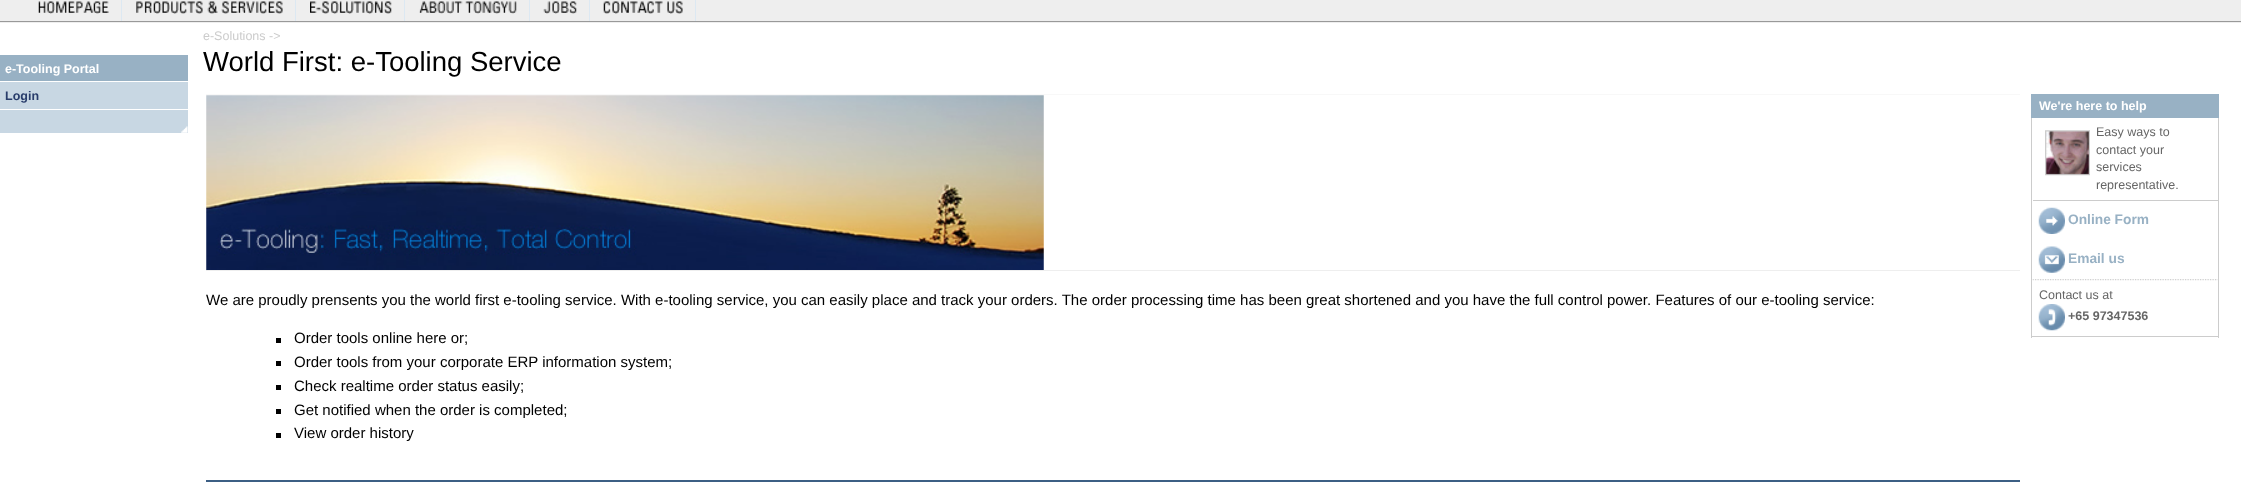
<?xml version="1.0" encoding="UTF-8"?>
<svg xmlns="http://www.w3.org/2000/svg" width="2242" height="482">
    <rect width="100%" height="100%" fill="#FFFFFF"/>
    <rect x="0" y="0" width="2241" height="23" fill="#EEEEEE"/>
    <rect x="0" y="21" width="2241" height="1" fill="#999999"/>
    <rect x="121" y="0" width="1" height="21" fill="#DCE8F2"/>
    <image x="38" y="1" width="71" height="13" href="img_01.png"/>
    <rect x="295" y="0" width="1" height="21" fill="#DCE8F2"/>
    <image x="136" y="1" width="147" height="13" href="img_02.png"/>
    <rect x="404" y="0" width="1" height="21" fill="#DCE8F2"/>
    <image x="310" y="1" width="82" height="13" href="img_03.png"/>
    <rect x="529" y="0" width="1" height="21" fill="#DCE8F2"/>
    <image x="419" y="1" width="98" height="13" href="img_04.png"/>
    <rect x="589" y="0" width="1" height="21" fill="#DCE8F2"/>
    <image x="543" y="1" width="34" height="13" href="img_05.png"/>
    <rect x="695" y="0" width="1" height="21" fill="#DCE8F2"/>
    <image x="603" y="1" width="80" height="13" href="img_06.png"/>
    <rect x="0" y="55" width="188" height="26" fill="#98B1C4"/>
    <text x="5" y="73" font-family="Liberation Sans" font-size="12.5" font-weight="700" fill="#FFFFFF">e-Tooling Portal</text>
    <rect x="0" y="82" width="188" height="27" fill="#C8D7E3"/>
    <text x="5" y="100" font-family="Liberation Sans" font-size="12.5" font-weight="700" fill="#293D6B">Login</text>
    <rect x="0" y="110" width="188" height="23" fill="#C8D7E3"/>
    <image x="181" y="126" width="7" height="7" href="img_07.png"/>
    <text x="203" y="40" font-family="Liberation Sans" font-size="12.5" fill="#CCCCCC">e-Solutions -&gt;</text>
    <text x="203" y="71" font-family="Liberation Sans" font-size="27.5" fill="#000000">World First: e-Tooling Service</text>
    <rect x="2031" y="94" width="188" height="24" fill="#98B1C4"/>
    <text x="2039" y="110" font-family="Liberation Sans" font-size="12.5" font-weight="700" fill="#FFFFFF">We're here to help</text>
    <rect x="2218" y="118" width="1" height="220" fill="#CCCCCC"/>
    <rect x="2031" y="336" width="188" height="1" fill="#CCCCCC"/>
    <rect x="2031" y="118" width="1" height="220" fill="#CCCCCC"/>
    <image x="2045" y="130" width="45" height="46" href="img_08.png"/>
    <text font-family="Liberation Sans" font-size="12.5" fill="#666666">
        <tspan x="2096" y="136">Easy ways to</tspan>
        <tspan x="2096" y="154">contact your</tspan>
        <tspan x="2096" y="171">services</tspan>
        <tspan x="2096" y="189">representative.</tspan>
    </text>
    <rect x="2033" y="200" width="185" height="1" fill="#CCCCCC"/>
    <image x="2038" y="207" width="27" height="27" href="img_09.png"/>
    <text x="2068" y="224" font-family="Liberation Sans" font-size="13.75" font-weight="700" fill="#98B1C4">Online Form</text>
    <image x="2038" y="246" width="27" height="27" href="img_10.png"/>
    <text x="2068" y="263" font-family="Liberation Sans" font-size="13.75" font-weight="700" fill="#98B1C4">Email us</text>
    <image x="2032" y="279" width="186" height="2" href="img_11.png"/>
    <text x="2039" y="299" font-family="Liberation Sans" font-size="12.5" fill="#666666">Contact us at</text>
    <image x="2038" y="304" width="27" height="27" href="img_12.png"/>
    <text x="2068" y="320" font-family="Liberation Sans" font-size="12.5" font-weight="700" fill="#666666">+65 97347536</text>
    <image x="206" y="95" width="838" height="175" href="img_13.png"/>
    <rect x="206" y="94" width="1814" height="1" fill="#F8F8F8"/>
    <rect x="206" y="270" width="1814" height="1" fill="#EEEEEE"/>
    <text x="206" y="305" font-family="Liberation Sans" font-size="15" fill="#000000">We are proudly prensents you the world first e-tooling service. With e-tooling service, you can easily place and track your orders. The order processing time has been great shortened and you have the full control power. Features of our e-tooling service:</text>
    <rect x="276" y="338" width="5" height="5" fill="#000000"/>
    <text x="294" y="343" font-family="Liberation Sans" font-size="15" fill="#000000">Order tools online here or;</text>
    <rect x="276" y="361" width="5" height="5" fill="#000000"/>
    <text x="294" y="367" font-family="Liberation Sans" font-size="15" fill="#000000">Order tools from your corporate ERP information system;</text>
    <rect x="276" y="385" width="5" height="5" fill="#000000"/>
    <text x="294" y="391" font-family="Liberation Sans" font-size="15" fill="#000000">Check realtime order status easily;</text>
    <rect x="276" y="409" width="5" height="5" fill="#000000"/>
    <text x="294" y="415" font-family="Liberation Sans" font-size="15" fill="#000000">Get notified when the order is completed;</text>
    <rect x="276" y="433" width="5" height="5" fill="#000000"/>
    <text x="294" y="438" font-family="Liberation Sans" font-size="15" fill="#000000">View order history</text>
    <rect x="206" y="480" width="1814" height="2" fill="#3C5F84"/>
</svg>
